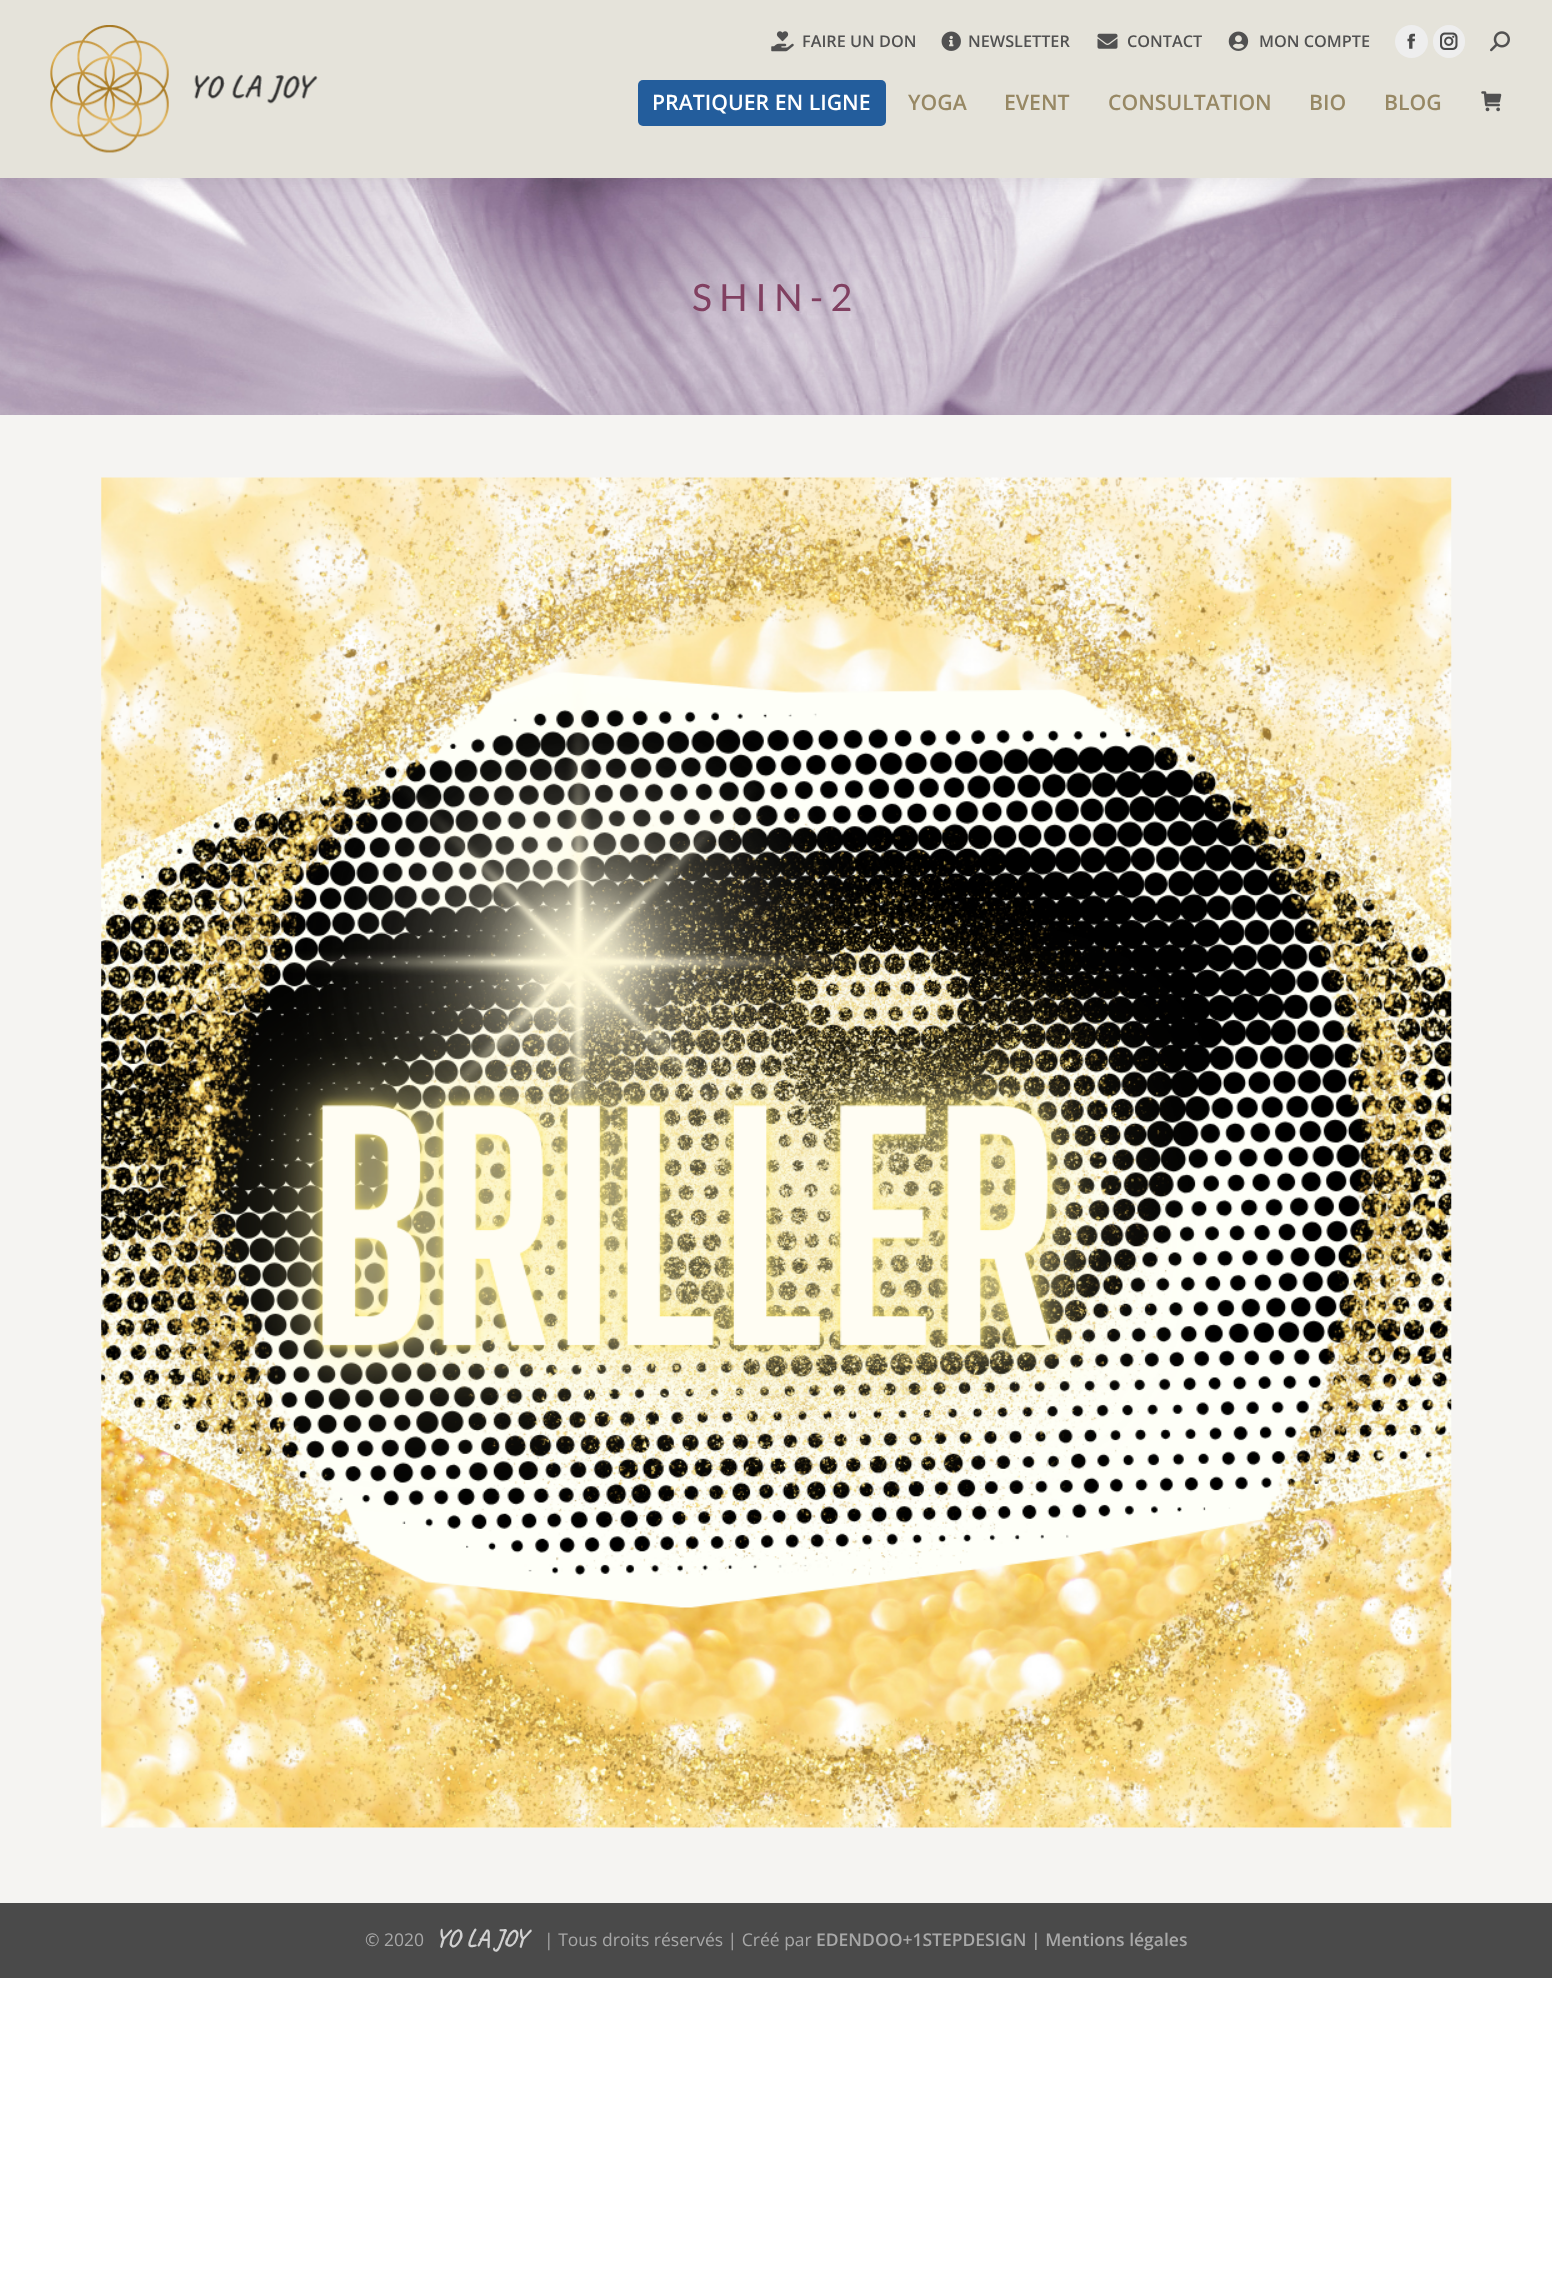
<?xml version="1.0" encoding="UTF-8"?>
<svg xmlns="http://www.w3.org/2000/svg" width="1552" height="2277">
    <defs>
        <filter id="blur1" x="-50%" y="-200%" width="200%" height="500%"><feGaussianBlur stdDeviation="9.5"/></filter>
    </defs>
    <rect width="100%" height="100%" fill="#FFFFFF"/>
    <rect x="0" y="415" width="1552" height="1488" fill="#F5F4F2"/>
    <image x="0" y="178" width="1552" height="237" href="img_10.png"/>
    <rect x="-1" y="-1" width="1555" height="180" fill="#000000" fill-opacity="0.07" filter="url(#blur1)"/>
    <rect x="0" y="0" width="1552" height="178" fill="#E5E3DA"/>
    <image x="771" y="31" width="23" height="21" href="img_01.png"/>
    <text x="802" y="47" font-family="Open Sans" font-size="16.25" font-weight="600" fill="#515151">FAIRE UN DON</text>
    <image x="941" y="31" width="20" height="20" href="img_02.png"/>
    <text x="968" y="47" font-family="Open Sans" font-size="16.25" font-weight="600" fill="#515151">NEWSLETTER</text>
    <image x="1097" y="33" width="21" height="16" href="img_03.png"/>
    <text x="1127" y="47" font-family="Open Sans" font-size="16.25" font-weight="600" fill="#515151">CONTACT</text>
    <image x="1228" y="31" width="21" height="20" href="img_04.png"/>
    <text x="1259" y="47" font-family="Open Sans" font-size="16.25" font-weight="600" fill="#515151">MON COMPTE</text>
    <circle cx="1411.5" cy="41.5" r="16.5" fill="#EEEEEE"/>
    <image x="1407" y="33" width="8" height="16" href="img_05.png"/>
    <rect x="1433" y="25" width="32" height="33" rx="16" fill="#EEEEEE"/>
    <image x="1440" y="32" width="18" height="18" href="img_06.png"/>
    <image x="1490" y="31" width="20" height="21" href="img_07.png"/>
    <image x="50" y="25" width="268" height="128" href="img_08.png"/>
    <rect x="638" y="80" width="248" height="46" rx="5" fill="#235D9C"/>
    <text x="652" y="110" font-family="Open Sans" font-size="21.25" font-weight="600" fill="#FFFFFF">PRATIQUER EN LIGNE</text>
    <text x="908" y="110" font-family="Open Sans" font-size="21.25" font-weight="600" fill="#978864">YOGA</text>
    <text x="1004" y="110" font-family="Open Sans" font-size="21.25" font-weight="600" fill="#978864">EVENT</text>
    <text x="1108" y="110" font-family="Open Sans" font-size="21.25" font-weight="600" fill="#978864">CONSULTATION</text>
    <text x="1309" y="110" font-family="Open Sans" font-size="21.25" font-weight="600" fill="#978864">BIO</text>
    <text x="1384" y="110" font-family="Open Sans" font-size="21.25" font-weight="600" fill="#978864">BLOG</text>
    <image x="1481" y="91" width="21" height="21" href="img_09.png"/>
    <text x="692" y="311" font-family="Lato" font-size="37.5" letter-spacing="7.5" fill="#814061">SHIN-2</text>
    <image x="101" y="477" width="1351" height="1351" href="img_11.png"/>
    <rect x="0" y="1903" width="1552" height="75" fill="#4A4A4A"/>
    <text x="365" y="1946" font-family="Open Sans" font-size="17.5" fill="#A8A8A8">© 2020</text>
    <text x="435" y="1946" font-family="Caveat" font-size="25" font-weight="700" fill="#D1D1D1">YO LA JOY</text>
    <text x="544" y="1946" font-family="Open Sans" font-size="17.5" fill="#A8A8A8">| Tous droits réservés | Créé par</text>
    <text x="816" y="1946" font-family="Open Sans" font-size="17.5" font-weight="600" fill="#A8A8A8">EDENDOO+1STEPDESIGN | Mentions légales</text>
</svg>
